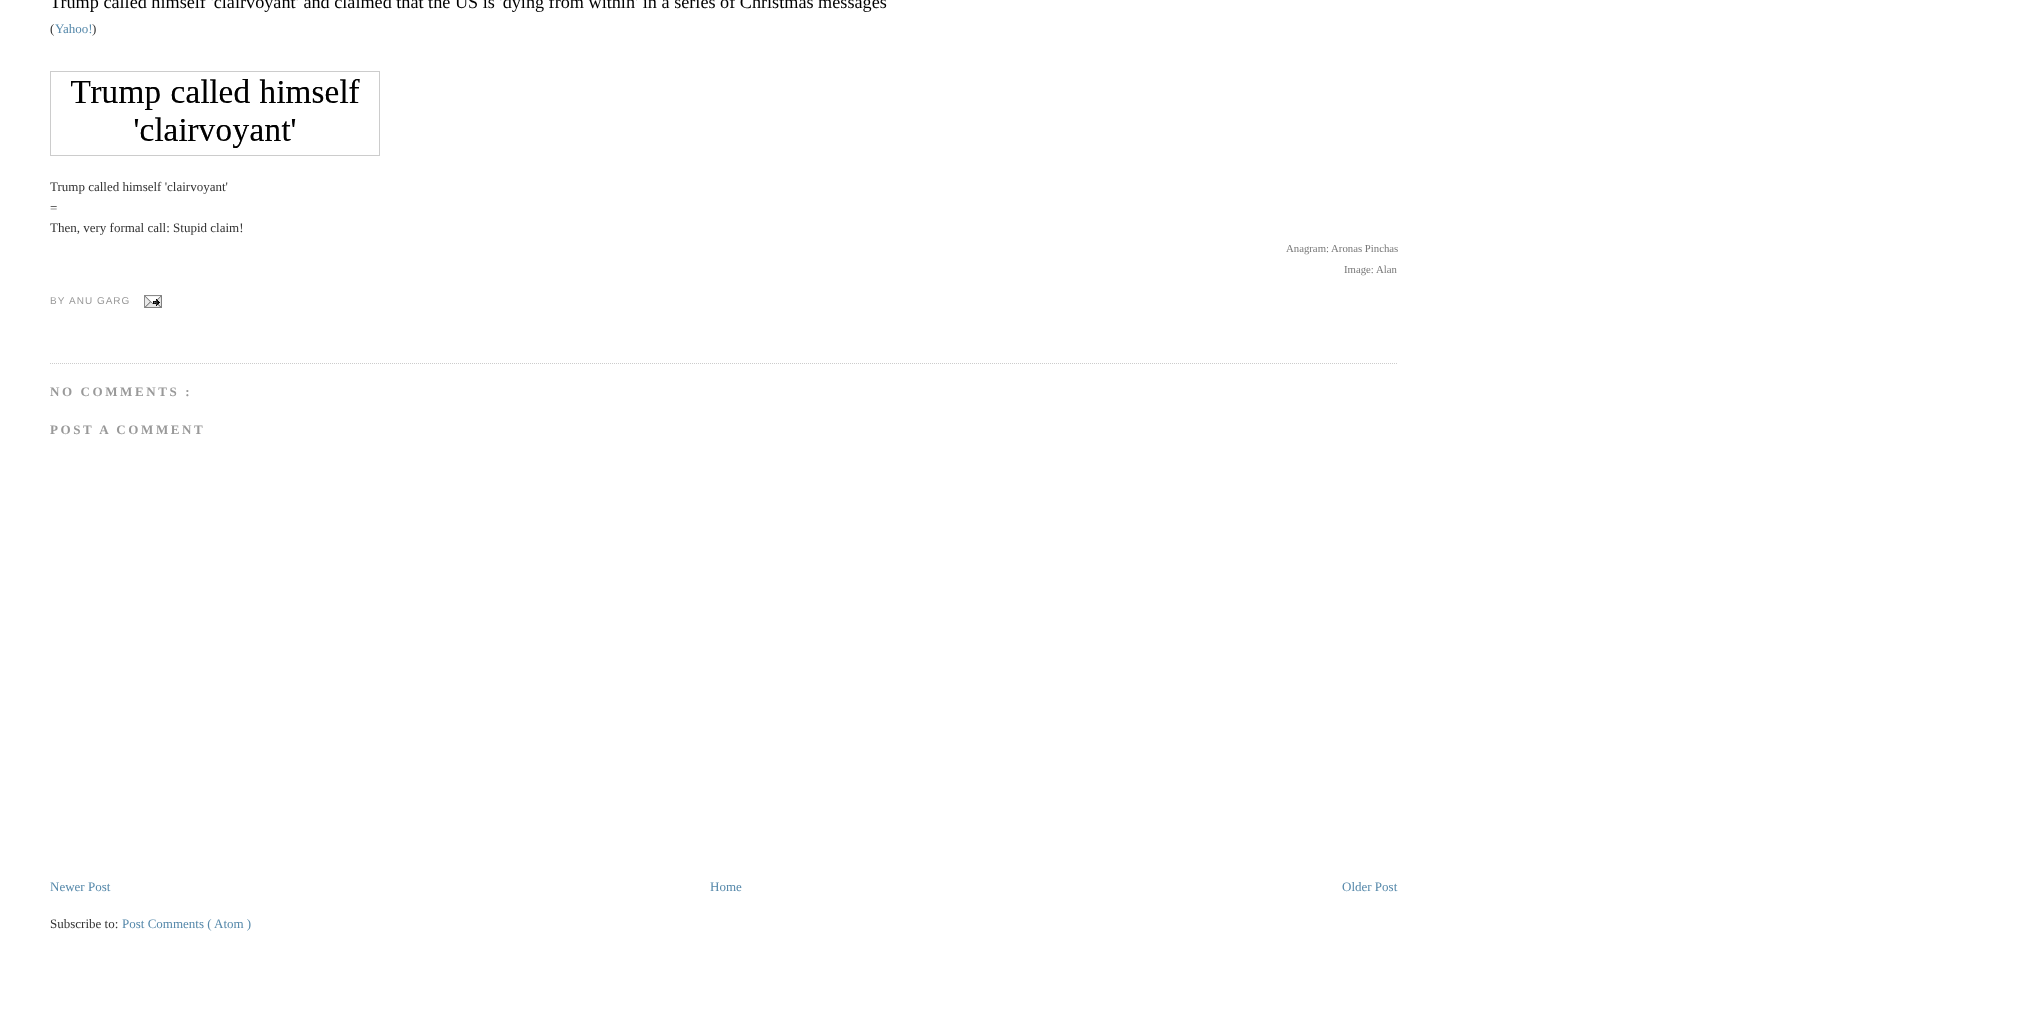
<?xml version="1.0" encoding="UTF-8"?>
<svg xmlns="http://www.w3.org/2000/svg" width="2030" height="1029">
    <rect width="100%" height="100%" fill="#FFFFFF"/>
    <path d="M 50 363.5 H 1397" fill="none" stroke="#CCCCCC" stroke-dasharray="1 1"/>
    <text x="50" y="8" font-family="Liberation Serif" font-size="18.2" fill="#000000">Trump called himself 'clairvoyant' and claimed that the US is 'dying from within' in a series of Christmas messages</text>
    <text x="50" y="33" font-family="Liberation Serif" font-size="13" fill="#333333">(</text>
    <text x="55" y="33" font-family="Liberation Serif" font-size="13" fill="#5588AA">Yahoo!</text>
    <text x="92" y="33" font-family="Liberation Serif" font-size="13" fill="#333333">)</text>
    <image x="50" y="71" width="330" height="85" href="img_01.png"/>
    <text font-family="Liberation Serif" font-size="13" fill="#333333">
        <tspan x="50" y="191">Trump called himself 'clairvoyant'</tspan>
        <tspan x="50" y="212">=</tspan>
        <tspan x="50" y="232">Then, very formal call: Stupid claim!</tspan>
    </text>
    <text x="1286" y="252" font-family="Liberation Serif" font-size="10.75" fill="#777777">Anagram: Aronas Pinchas</text>
    <text x="1344" y="273" font-family="Liberation Serif" font-size="10.75" fill="#777777">Image: Alan</text>
    <text x="50" y="304" font-family="Liberation Sans" font-size="10" letter-spacing="1" fill="#999999">BY</text>
    <text x="69" y="304" font-family="Liberation Sans" font-size="10" letter-spacing="1" fill="#999999">ANU GARG</text>
    <image x="144" y="295" width="18" height="13" href="img_02.png"/>
    <text x="50" y="396" font-family="Liberation Serif" font-size="13" font-weight="700" letter-spacing="2.6" fill="#999999">NO COMMENTS :</text>
    <text x="50" y="434" font-family="Liberation Serif" font-size="13" font-weight="700" letter-spacing="2.6" fill="#999999">POST A COMMENT</text>
    <text x="50" y="891" font-family="Liberation Serif" font-size="13" fill="#5588AA">Newer Post</text>
    <text x="710" y="891" font-family="Liberation Serif" font-size="13" fill="#5588AA">Home</text>
    <text x="1342" y="891" font-family="Liberation Serif" font-size="13" fill="#5588AA">Older Post</text>
    <text x="50" y="928" font-family="Liberation Serif" font-size="13" fill="#333333">Subscribe to:</text>
    <text x="122" y="928" font-family="Liberation Serif" font-size="13" fill="#5588AA">Post Comments (</text>
    <text x="214" y="928" font-family="Liberation Serif" font-size="13" fill="#5588AA">Atom )</text>
</svg>
